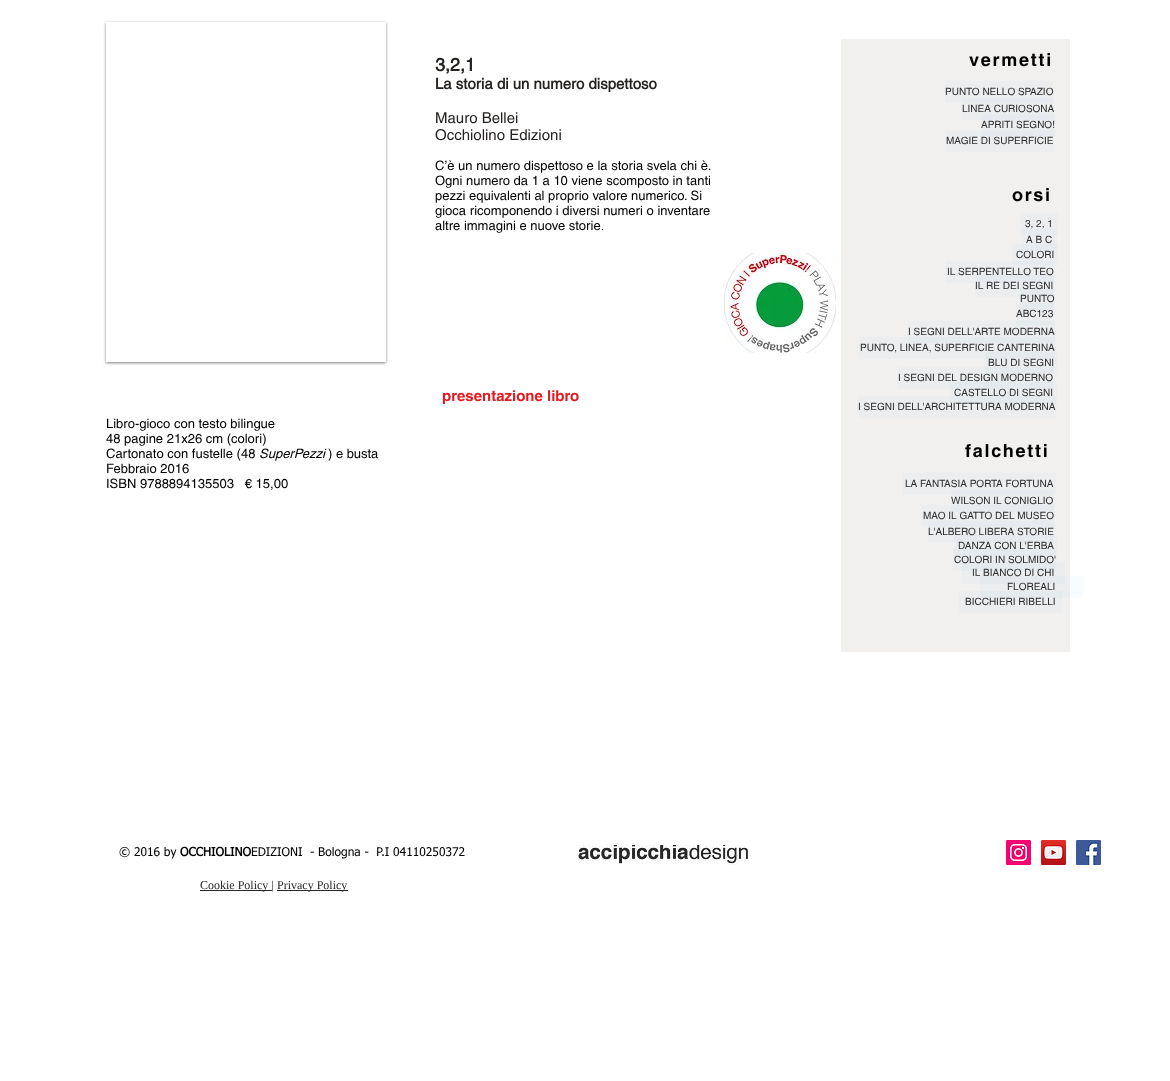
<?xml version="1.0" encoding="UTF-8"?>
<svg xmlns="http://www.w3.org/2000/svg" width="1170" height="1081">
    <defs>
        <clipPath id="clip1"><path d="M 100 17 H 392 V 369 H 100 Z M 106 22 H 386 V 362 H 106 Z" clip-rule="evenodd"/></clipPath>
        <filter id="blur1" x="-50%" y="-200%" width="200%" height="500%"><feGaussianBlur stdDeviation="1.5"/></filter>
    </defs>
    <rect width="100%" height="100%" fill="#FFFFFF"/>
    <g clip-path="url(#clip1)">
        <rect x="106" y="23" width="280" height="340" fill="#000000" fill-opacity="0.5" filter="url(#blur1)"/>
    </g>
    <text x="435" y="71" font-family="helvetica" font-size="18" font-weight="700" fill="#24211F">3,2,1</text>
    <text x="435" y="89" font-family="helvetica" font-size="15" font-weight="700" fill="#24211F">La storia di un numero dispettoso</text>
    <text font-family="helvetica" font-size="15" fill="#24211F">
        <tspan x="435" y="123">Mauro Bellei</tspan>
        <tspan x="435" y="140">Occhiolino Edizioni</tspan>
    </text>
    <text font-family="helvetica" font-size="13" fill="#000000">
        <tspan x="435" y="170">C’è un numero dispettoso e la storia svela chi è.</tspan>
        <tspan x="435" y="185">Ogni numero da 1 a 10 viene scomposto in tanti</tspan>
        <tspan x="435" y="200">pezzi equivalenti al proprio valore numerico. Si</tspan>
        <tspan x="435" y="215">gioca ricomponendo i diversi numeri o inventare</tspan>
        <tspan x="435" y="230">altre immagini e nuove storie</tspan>
    </text>
    <text x="601" y="230" font-family="'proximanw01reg'" font-size="13" fill="#000000">.</text>
    <rect x="841" y="39" width="229" height="613" fill="#F1F0EF"/>
    <rect x="981" y="114" width="74" height="22" fill="#ECEDEF"/>
    <rect x="962" y="98" width="92" height="22" fill="#ECEDEF"/>
    <rect x="981" y="114" width="73" height="6" fill="#E7EBEF"/>
    <text x="969" y="66" font-family="'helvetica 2'" font-size="18" font-weight="700" letter-spacing="1.75" fill="#000000">vermetti</text>
    <rect x="945" y="81" width="108" height="22" fill="#ECEDEF"/>
    <rect x="962" y="98" width="91" height="5" fill="#E7EBEF"/>
    <text x="945" y="95" font-family="helvetica" font-size="10" fill="#2F2E2E">PUNTO NELLO SPAZIO</text>
    <text x="962" y="112" font-family="helvetica" font-size="10" fill="#2F2E2E">LINEA CURIOSONA</text>
    <text x="981" y="128" font-family="helvetica" font-size="10" fill="#2F2E2E">APRITI SEGNO!</text>
    <rect x="946" y="130" width="108" height="22" fill="#ECEDEF"/>
    <rect x="981" y="130" width="73" height="6" fill="#E7EBEF"/>
    <text x="946" y="144" font-family="helvetica" font-size="10" fill="#2F2E2E">MAGIE DI SUPERFICIE</text>
    <image x="724" y="253" width="112" height="100" href="img_01.png"/>
    <text x="1012" y="201" font-family="'helvetica 2'" font-size="18" font-weight="700" letter-spacing="1.75" fill="#000000">orsi</text>
    <rect x="1020" y="213" width="38" height="22" fill="#ECEDEF"/>
    <rect x="1022" y="229" width="35" height="6" fill="#E7EBEF"/>
    <text x="1025" y="227" font-family="helvetica" font-size="10" fill="#2F2E2E">3, 2, 1</text>
    <rect x="1022" y="235" width="35" height="9" fill="#ECEDEF"/>
    <text x="1026" y="243" font-family="helvetica" font-size="10" fill="#2F2E2E">A B C</text>
    <rect x="1012" y="244" width="46" height="22" fill="#ECEDEF"/>
    <rect x="1022" y="244" width="35" height="7" fill="#E7EBEF"/>
    <text x="1016" y="258" font-family="helvetica" font-size="10" fill="#2F2E2E">COLORI</text>
    <rect x="946" y="261" width="108" height="22" fill="#ECEDEF"/>
    <rect x="1012" y="261" width="42" height="5" fill="#E7EBEF"/>
    <text x="947" y="275" font-family="helvetica" font-size="10" fill="#2F2E2E">IL SERPENTELLO TEO</text>
    <rect x="975" y="275" width="79" height="22" fill="#3D9BE9" fill-opacity="0.03"/>
    <text x="975" y="289" font-family="helvetica" font-size="10" fill="#2F2E2E">IL RE DEI SEGNI</text>
    <rect x="1020" y="288" width="35" height="22" fill="#3D9BE9" fill-opacity="0.03"/>
    <text x="1020" y="302" font-family="helvetica" font-size="10" fill="#2F2E2E">PUNTO</text>
    <rect x="1016" y="303" width="38" height="22" fill="#3D9BE9" fill-opacity="0.03"/>
    <text x="1016" y="317" font-family="helvetica" font-size="10" fill="#2F2E2E">ABC123</text>
    <rect x="908" y="321" width="147" height="22" fill="#3D9BE9" fill-opacity="0.03"/>
    <text x="908" y="335" font-family="helvetica" font-size="10" fill="#2F2E2E">I SEGNI DELL'ARTE MODERNA</text>
    <rect x="859" y="337" width="196" height="22" fill="#3D9BE9" fill-opacity="0.03"/>
    <text x="860" y="351" font-family="helvetica" font-size="10" fill="#2F2E2E">PUNTO, LINEA, SUPERFICIE CANTERINA</text>
    <rect x="985" y="352" width="72" height="22" fill="#3D9BE9" fill-opacity="0.03"/>
    <text x="988" y="366" font-family="helvetica" font-size="10" fill="#2F2E2E">BLU DI SEGNI</text>
    <rect x="898" y="367" width="156" height="22" fill="#3D9BE9" fill-opacity="0.03"/>
    <text x="898" y="381" font-family="helvetica" font-size="10" fill="#2F2E2E">I SEGNI DEL DESIGN MODERNO</text>
    <rect x="949" y="382" width="108" height="22" fill="#3D9BE9" fill-opacity="0.03"/>
    <text x="954" y="396" font-family="helvetica" font-size="10" fill="#2F2E2E">CASTELLO DI SEGNI</text>
    <rect x="858" y="396" width="198" height="22" fill="#3D9BE9" fill-opacity="0.03"/>
    <text x="858" y="410" font-family="helvetica" font-size="10" fill="#2F2E2E">I SEGNI DELL'ARCHITETTURA MODERNA</text>
    <text x="965" y="457" font-family="'helvetica 2'" font-size="18" font-weight="700" letter-spacing="1.75" fill="#000000">falchetti</text>
    <rect x="903" y="473" width="153" height="22" fill="#ECEDEF"/>
    <rect x="951" y="490" width="103" height="5" fill="#E7EBEF"/>
    <text x="905" y="487" font-family="helvetica" font-size="10" fill="#2F2E2E">LA FANTASIA PORTA FORTUNA</text>
    <rect x="951" y="495" width="103" height="10" fill="#ECEDEF"/>
    <text x="951" y="504" font-family="helvetica" font-size="10" fill="#2F2E2E">WILSON IL CONIGLIO</text>
    <rect x="922" y="505" width="133" height="22" fill="#ECEDEF"/>
    <rect x="951" y="505" width="103" height="7" fill="#E7EBEF"/>
    <text x="923" y="519" font-family="helvetica" font-size="10" fill="#2F2E2E">MAO IL GATTO DEL MUSEO</text>
    <rect x="928" y="527" width="126" height="16" fill="#ECEDEF"/>
    <rect x="928" y="521" width="126" height="6" fill="#E7EBEF"/>
    <text x="928" y="535" font-family="helvetica" font-size="10" fill="#2F2E2E">L'ALBERO LIBERA STORIE</text>
    <rect x="954" y="535" width="103" height="22" fill="#3D9BE9" fill-opacity="0.03"/>
    <text x="958" y="549" font-family="helvetica" font-size="10" fill="#2F2E2E">DANZA CON L'ERBA</text>
    <rect x="953" y="549" width="103" height="22" fill="#3D9BE9" fill-opacity="0.03"/>
    <text x="954" y="563" font-family="helvetica" font-size="10" fill="#2F2E2E">COLORI IN SOLMIDO'</text>
    <rect x="962" y="562" width="103" height="22" fill="#3D9BE9" fill-opacity="0.03"/>
    <text x="972" y="576" font-family="helvetica" font-size="10" fill="#2F2E2E">IL BIANCO DI CHI</text>
    <rect x="980" y="576" width="103" height="22" fill="#3D9BE9" fill-opacity="0.03"/>
    <text x="1007" y="590" font-family="helvetica" font-size="10" fill="#2F2E2E">FLOREALI</text>
    <rect x="959" y="591" width="103" height="22" fill="#3D9BE9" fill-opacity="0.03"/>
    <text x="965" y="605" font-family="helvetica" font-size="10" fill="#2F2E2E">BICCHIERI RIBELLI</text>
    <text x="442" y="401" font-family="'helvetica 2'" font-size="15" font-weight="700" fill="#E21C21">presentazione libro</text>
    <text font-family="helvetica" font-size="13" fill="#000000">
        <tspan x="106" y="428">Libro-gioco con testo bilingue</tspan>
        <tspan x="106" y="443">48 pagine 21x26 cm (colori)</tspan>
        <tspan x="106" y="458">Cartonato con fustelle (48</tspan>
    </text>
    <text x="259" y="458" font-family="helvetica" font-size="13" font-style="italic" fill="#000000">SuperPezzi</text>
    <text x="328" y="458" font-family="helvetica" font-size="13" fill="#000000">) e busta</text>
    <text font-family="helvetica" font-size="13" fill="#000000" xml:space="preserve"><tspan x="106" y="473">Febbraio 2016</tspan><tspan x="106" y="488">ISBN 9788894135503   € 15,00</tspan></text>
    <text x="119" y="856" font-family="tahoma" font-size="12" fill="#000000">© 2016 by</text>
    <text x="180" y="856" font-family="tahoma" font-size="12" font-weight="700" fill="#000000">OCCHIOLINO</text>
    <text x="251" y="856" font-family="tahoma" font-size="12" fill="#000000" xml:space="preserve">EDIZIONI  - Bologna -  P.I 04110250372</text>
    <image x="578" y="845" width="172" height="20" href="img_02.png"/>
    <image x="1006" y="840" width="25" height="25" href="img_03.png"/>
    <image x="1041" y="840" width="25" height="25" href="img_04.png"/>
    <image x="1076" y="840" width="25" height="25" href="img_05.png"/>
    <rect x="200" y="890" width="72" height="1" fill="#272727"/>
    <text x="200" y="889" font-family="Liberation Serif" font-size="12" fill="#272727">Cookie Policy |</text>
    <rect x="277" y="890" width="71" height="1" fill="#272727"/>
    <text x="277" y="889" font-family="Liberation Serif" font-size="12" fill="#272727">Privacy Policy</text>
</svg>
